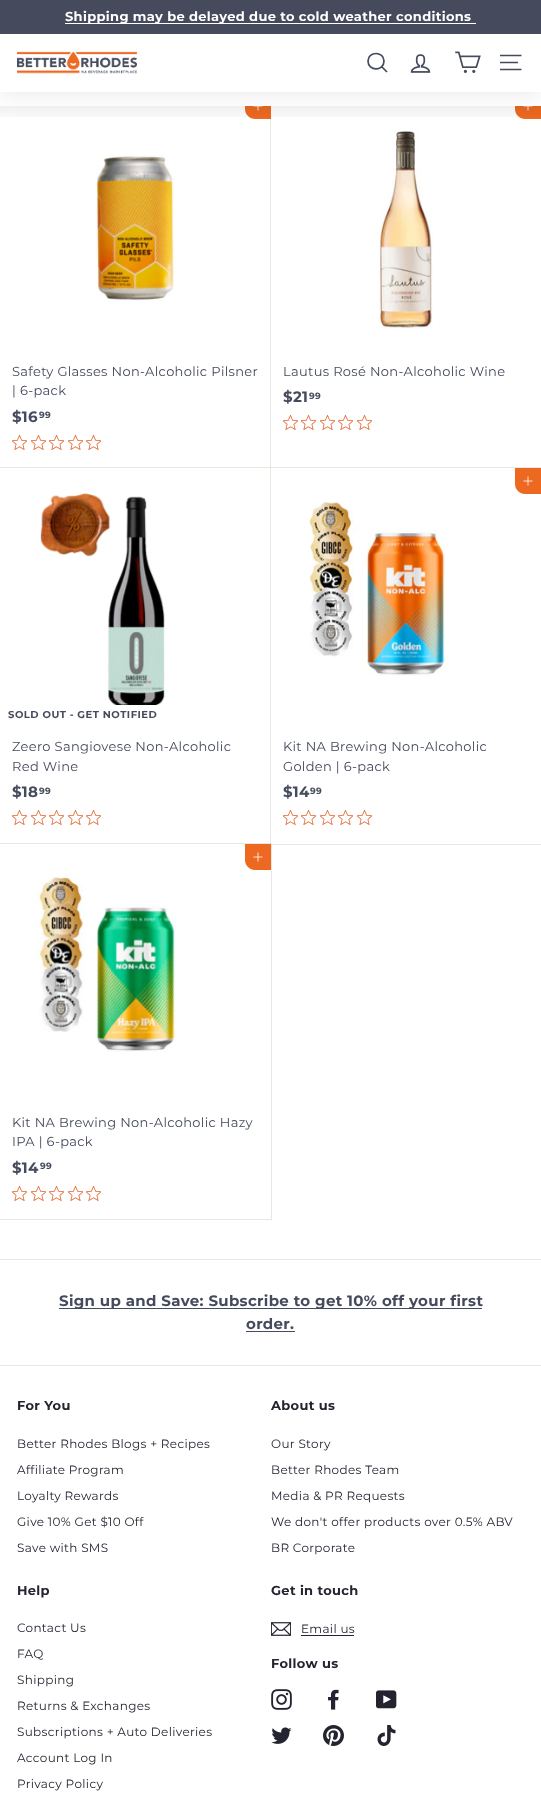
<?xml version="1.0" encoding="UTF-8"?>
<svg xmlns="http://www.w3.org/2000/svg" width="541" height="1794">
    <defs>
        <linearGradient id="g1" gradientUnits="userSpaceOnUse" x1="271" y1="106" x2="271" y2="126"><stop offset="0" stop-color="#000000" stop-opacity="0.05"/><stop offset="1" stop-color="#000000" stop-opacity="0"/></linearGradient>
        <filter id="blur1" x="-50%" y="-200%" width="200%" height="500%"><feGaussianBlur stdDeviation="12.5"/></filter>
    </defs>
    <rect width="100%" height="100%" fill="#FFFFFF"/>
    <image x="378" y="131" width="55" height="198" href="img_06.png"/>
    <image x="283" y="415" width="15" height="15" href="img_05.png"/>
    <image x="301" y="415" width="15" height="15" href="img_05.png"/>
    <image x="320" y="415" width="15" height="15" href="img_05.png"/>
    <image x="338" y="415" width="15" height="15" href="img_05.png"/>
    <image x="357" y="415" width="15" height="15" href="img_05.png"/>
    <rect x="270.5" y="92.5" width="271" height="376" fill="none" stroke="#E8E8E1"/>
    <path d="M 245 93 H 271 V 119 H 255 C 249.5 119 245 114.5 245 109 Z" fill="#ED6921"/>
    <path d="M 258 101.5 V 110.5 M 262.5 106 H 253.5" fill="none" stroke="#FFFFFF" stroke-width="0.8"/>
    <path d="M 515 93 H 541 V 119 H 525 C 519.5 119 515 114.5 515 109 Z" fill="#ED6921"/>
    <path d="M 528 101.5 V 110.5 M 532.5 106 H 523.5" fill="none" stroke="#FFFFFF" stroke-width="0.8"/>
    <rect x="245" y="92" width="296" height="14" fill="#FFFFFF"/>
    <rect x="0" y="106" width="541" height="11" fill="url(#g1)"/>
    <rect x="0" y="33" width="541" height="59" fill="#000000" fill-opacity="0.1" filter="url(#blur1)"/>
    <rect x="0" y="34" width="541" height="58" fill="#FFFFFF"/>
    <image x="17" y="51" width="120" height="23" href="img_01.png"/>
    <path d="M 384 61 C 384 71.5 368 71.5 368 61 C 368 51 384 51 384 61 Z M 387 72 L 381.5 66.5" fill="none" stroke="#454A5C" stroke-width="1.7"/>
    <image x="410" y="54" width="21" height="19" href="img_02.png"/>
    <image x="455" y="51" width="26" height="22" href="img_03.png"/>
    <path d="M 500 55.5 H 521.5 M 500 62.5 H 518 M 500 69.5 H 521.5" fill="none" stroke="#454A5C" stroke-width="1.7"/>
    <rect x="0" y="0" width="541" height="34" fill="#454A5C"/>
    <rect x="65" y="23" width="411" height="1" fill="#FFFFFF"/>
    <text x="65" y="21" font-family="Montserrat" font-size="13" font-weight="700" letter-spacing="0.33" fill="#FFFFFF">Shipping may be delayed due to cold weather conditions</text>
    <image x="96" y="155" width="79" height="146" href="img_04.png"/>
    <text font-family="Montserrat" font-size="13" letter-spacing="0.33" fill="#454A5C">
        <tspan x="12" y="376">Safety Glasses Non-Alcoholic Pilsner</tspan>
        <tspan x="12" y="395">| 6-pack</tspan>
    </text>
    <text x="12" y="422" font-family="Montserrat" font-size="15" font-weight="700" letter-spacing="0.33" fill="#454A5C">$16</text>
    <text x="39" y="418" font-family="Montserrat" font-size="9" font-weight="700" letter-spacing="0.33" fill="#454A5C">99</text>
    <image x="12" y="435" width="15" height="15" href="img_05.png"/>
    <image x="31" y="435" width="15" height="15" href="img_05.png"/>
    <image x="49" y="435" width="15" height="15" href="img_05.png"/>
    <image x="68" y="435" width="15" height="15" href="img_05.png"/>
    <image x="86" y="435" width="15" height="15" href="img_05.png"/>
    <text x="283" y="376" font-family="Montserrat" font-size="13" letter-spacing="0.33" fill="#454A5C">Lautus Rosé Non-Alcoholic Wine</text>
    <text x="283" y="402" font-family="Montserrat" font-size="15" font-weight="700" letter-spacing="0.33" fill="#454A5C">$21</text>
    <text x="309" y="399" font-family="Montserrat" font-size="9" font-weight="700" letter-spacing="0.33" fill="#454A5C">99</text>
    <image x="40" y="493" width="125" height="212" href="img_07.png"/>
    <image x="12" y="810" width="15" height="15" href="img_05.png"/>
    <image x="31" y="810" width="15" height="15" href="img_05.png"/>
    <image x="49" y="810" width="15" height="15" href="img_05.png"/>
    <image x="68" y="810" width="15" height="15" href="img_05.png"/>
    <image x="86" y="810" width="15" height="15" href="img_05.png"/>
    <rect x="-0.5" y="467.5" width="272" height="377" fill="none" stroke="#E8E8E1"/>
    <text x="8" y="718" font-family="Montserrat" font-size="10" font-weight="700" letter-spacing="0.5" fill="#454A5C">SOLD OUT - GET NOTIFIED</text>
    <text font-family="Montserrat" font-size="13" letter-spacing="0.33" fill="#454A5C">
        <tspan x="12" y="751">Zeero Sangiovese Non-Alcoholic</tspan>
        <tspan x="12" y="771">Red Wine</tspan>
    </text>
    <text x="12" y="797" font-family="Montserrat" font-size="15" font-weight="700" letter-spacing="0.33" fill="#454A5C">$18</text>
    <text x="39" y="794" font-family="Montserrat" font-size="9" font-weight="700" letter-spacing="0.33" fill="#454A5C">99</text>
    <rect x="271" y="468" width="270" height="376" fill="#FFFFFF"/>
    <image x="309" y="502" width="136" height="174" href="img_08.png"/>
    <image x="283" y="810" width="15" height="15" href="img_05.png"/>
    <image x="301" y="810" width="15" height="15" href="img_05.png"/>
    <image x="320" y="810" width="15" height="15" href="img_05.png"/>
    <image x="338" y="810" width="15" height="15" href="img_05.png"/>
    <image x="357" y="810" width="15" height="15" href="img_05.png"/>
    <rect x="270.5" y="467.5" width="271" height="377" fill="none" stroke="#E8E8E1"/>
    <path d="M 515 468 H 541 V 494 H 525 C 519.5 494 515 489.5 515 484 Z" fill="#ED6921"/>
    <path d="M 528 476.5 V 485.5 M 532.5 481 H 523.5" fill="none" stroke="#FFFFFF" stroke-width="0.8"/>
    <text font-family="Montserrat" font-size="13" letter-spacing="0.33" fill="#454A5C">
        <tspan x="283" y="751">Kit NA Brewing Non-Alcoholic</tspan>
        <tspan x="283" y="771">Golden | 6-pack</tspan>
    </text>
    <text x="283" y="797" font-family="Montserrat" font-size="15" font-weight="700" letter-spacing="0.33" fill="#454A5C">$14</text>
    <text x="310" y="794" font-family="Montserrat" font-size="9" font-weight="700" letter-spacing="0.33" fill="#454A5C">99</text>
    <rect x="0" y="844" width="271" height="1" fill="#FFFFFF"/>
    <image x="35" y="877" width="141" height="175" href="img_09.png"/>
    <image x="12" y="1186" width="15" height="15" href="img_05.png"/>
    <image x="31" y="1186" width="15" height="15" href="img_05.png"/>
    <image x="49" y="1186" width="15" height="15" href="img_05.png"/>
    <image x="68" y="1186" width="15" height="15" href="img_05.png"/>
    <image x="86" y="1186" width="15" height="15" href="img_05.png"/>
    <rect x="-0.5" y="843.5" width="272" height="376" fill="none" stroke="#E8E8E1"/>
    <path d="M 245 844 H 271 V 870 H 255 C 249.5 870 245 865.5 245 860 Z" fill="#ED6921"/>
    <path d="M 258 852.5 V 861.5 M 262.5 857 H 253.5" fill="none" stroke="#FFFFFF" stroke-width="0.8"/>
    <text font-family="Montserrat" font-size="13" letter-spacing="0.33" fill="#454A5C">
        <tspan x="12" y="1127">Kit NA Brewing Non-Alcoholic Hazy</tspan>
        <tspan x="12" y="1146">IPA | 6-pack</tspan>
    </text>
    <text x="12" y="1173" font-family="Montserrat" font-size="15" font-weight="700" letter-spacing="0.33" fill="#454A5C">$14</text>
    <text x="40" y="1169" font-family="Montserrat" font-size="9" font-weight="700" letter-spacing="0.33" fill="#454A5C">99</text>
    <rect x="0" y="1259" width="541" height="1" fill="#E8E8E1"/>
    <rect x="59" y="1308" width="423" height="1" fill="#454A5C"/>
    <text x="59" y="1306" font-family="Montserrat" font-size="15" font-weight="700" letter-spacing="0.33" fill="#454A5C">Sign up and Save: Subscribe to get 10% off your first</text>
    <text x="246" y="1329" font-family="Montserrat" font-size="15" font-weight="700" letter-spacing="0.33" fill="#454A5C">order.</text>
    <rect x="246" y="1331" width="49" height="1" fill="#454A5C"/>
    <rect x="0" y="1365" width="541" height="1" fill="#E8E8E1"/>
    <text x="17" y="1410" font-family="Montserrat" font-size="13" font-weight="700" letter-spacing="0.33" fill="#242430">For You</text>
    <text x="17" y="1448" font-family="Montserrat" font-size="12" letter-spacing="0.33" fill="#242430">Better Rhodes Blogs + Recipes</text>
    <text x="17" y="1474" font-family="Montserrat" font-size="12" letter-spacing="0.33" fill="#242430">Affiliate Program</text>
    <text x="17" y="1500" font-family="Montserrat" font-size="12" letter-spacing="0.33" fill="#242430">Loyalty Rewards</text>
    <text x="17" y="1526" font-family="Montserrat" font-size="12" letter-spacing="0.33" fill="#242430">Give 10% Get $10 Off</text>
    <text x="17" y="1552" font-family="Montserrat" font-size="12" letter-spacing="0.33" fill="#242430">Save with SMS</text>
    <text x="271" y="1410" font-family="Montserrat" font-size="13" font-weight="700" letter-spacing="0.33" fill="#242430">About us</text>
    <text x="271" y="1448" font-family="Montserrat" font-size="12" letter-spacing="0.33" fill="#242430">Our Story</text>
    <text x="271" y="1474" font-family="Montserrat" font-size="12" letter-spacing="0.33" fill="#242430">Better Rhodes Team</text>
    <text x="271" y="1500" font-family="Montserrat" font-size="12" letter-spacing="0.33" fill="#242430">Media &amp; PR Requests</text>
    <text x="271" y="1526" font-family="Montserrat" font-size="12" letter-spacing="0.33" fill="#242430">We don't offer products over 0.5% ABV</text>
    <text x="271" y="1552" font-family="Montserrat" font-size="12" letter-spacing="0.33" fill="#242430">BR Corporate</text>
    <text x="17" y="1595" font-family="Montserrat" font-size="13" font-weight="700" letter-spacing="0.33" fill="#242430">Help</text>
    <text x="17" y="1632" font-family="Montserrat" font-size="12" letter-spacing="0.33" fill="#242430">Contact Us</text>
    <text x="17" y="1658" font-family="Montserrat" font-size="12" letter-spacing="0.33" fill="#242430">FAQ</text>
    <text x="17" y="1684" font-family="Montserrat" font-size="12" letter-spacing="0.33" fill="#242430">Shipping</text>
    <text x="17" y="1710" font-family="Montserrat" font-size="12" letter-spacing="0.33" fill="#242430">Returns &amp; Exchanges</text>
    <text x="17" y="1736" font-family="Montserrat" font-size="12" letter-spacing="0.33" fill="#242430">Subscriptions + Auto Deliveries</text>
    <text x="17" y="1762" font-family="Montserrat" font-size="12" letter-spacing="0.33" fill="#242430">Account Log In</text>
    <text x="17" y="1788" font-family="Montserrat" font-size="12" letter-spacing="0.33" fill="#242430">Privacy Policy</text>
    <text x="271" y="1595" font-family="Montserrat" font-size="13" font-weight="700" letter-spacing="0.33" fill="#242430">Get in touch</text>
    <image x="271" y="1622" width="20" height="14" href="img_10.png"/>
    <text x="301" y="1633" font-family="Montserrat" font-size="12" letter-spacing="0.33" fill="#242430">Email us</text>
    <rect x="301" y="1635" width="53" height="1" fill="#242430"/>
    <text x="271" y="1668" font-family="Montserrat" font-size="13" font-weight="700" letter-spacing="0.33" fill="#242430">Follow us</text>
    <image x="271" y="1689" width="21" height="21" href="img_11.png"/>
    <image x="328" y="1689" width="11" height="21" href="img_12.png"/>
    <image x="376" y="1690" width="21" height="19" href="img_13.png"/>
    <image x="271" y="1727" width="21" height="17" href="img_14.png"/>
    <image x="323" y="1725" width="21" height="21" href="img_15.png"/>
    <image x="377" y="1725" width="19" height="21" href="img_16.png"/>
</svg>
